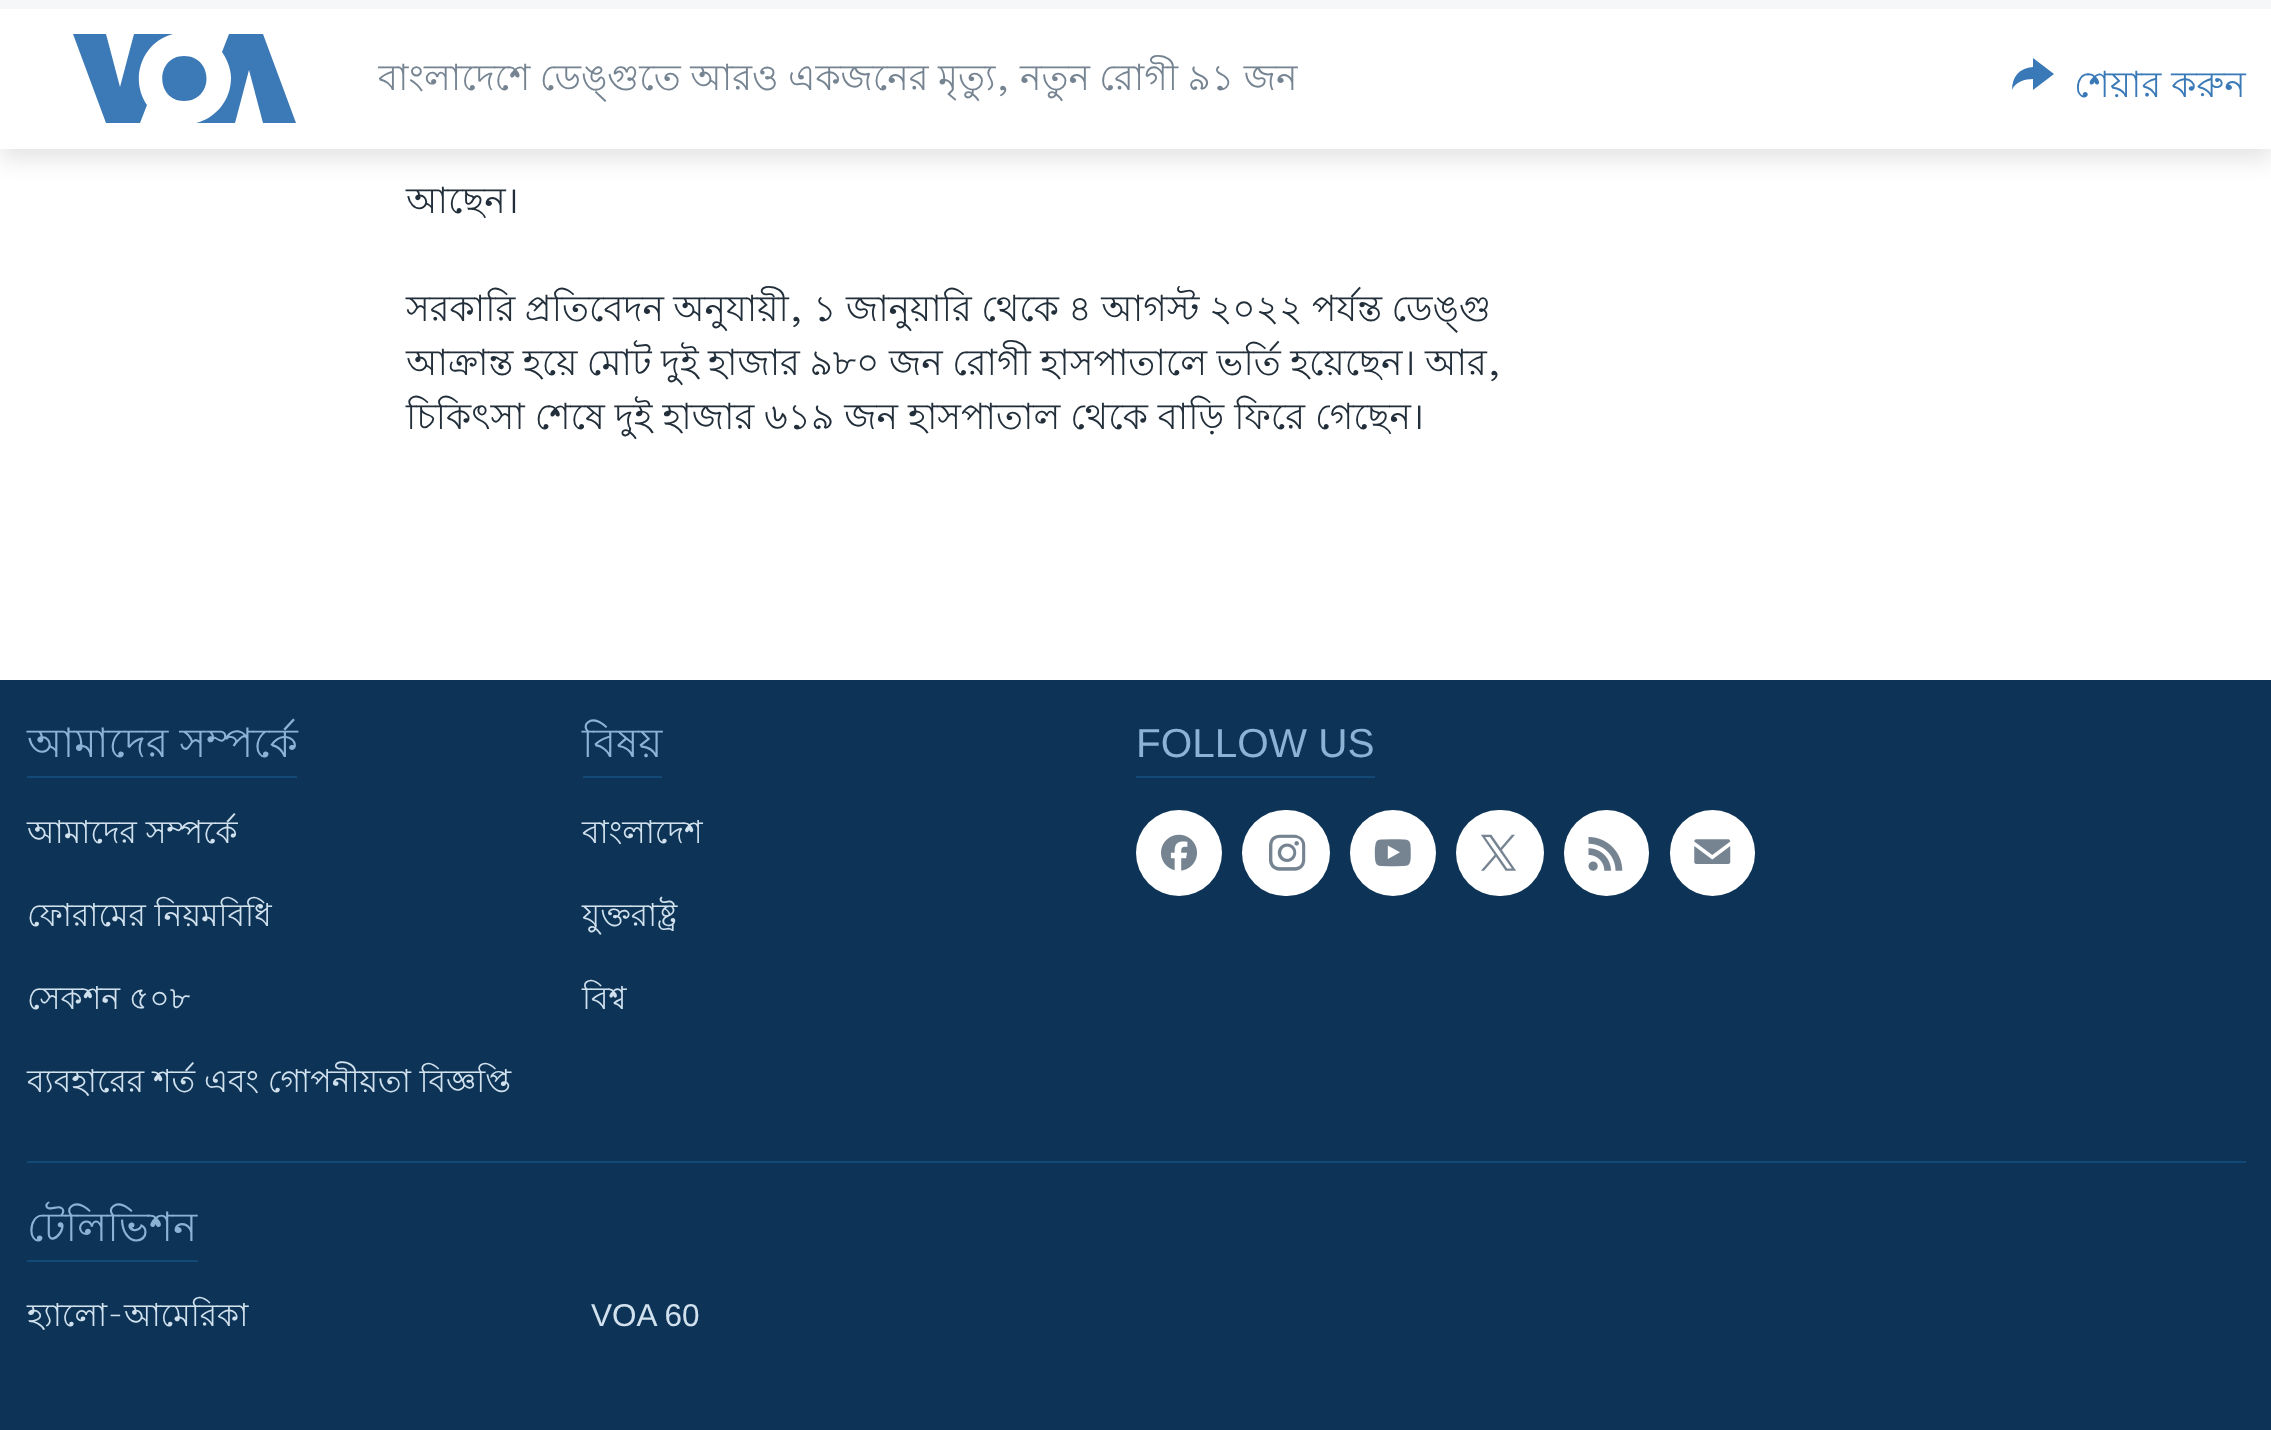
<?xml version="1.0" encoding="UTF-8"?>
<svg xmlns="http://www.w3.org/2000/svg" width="2271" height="1430">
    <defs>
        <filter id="blur1" x="-50%" y="-200%" width="200%" height="500%"><feGaussianBlur stdDeviation="11"/></filter>
        <clipPath id="clip1"><rect x="378" y="52" width="1595" height="54"/></clipPath>
    </defs>
    <rect width="100%" height="100%" fill="#FFFFFF"/>
    <rect x="0" y="11" width="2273" height="149" fill="#000000" fill-opacity="0.1" filter="url(#blur1)"/>
    <rect x="0" y="9" width="2271" height="140" fill="#FFFFFF"/>
    <rect x="0" y="0" width="2271" height="9" fill="#F6F7F8"/>
    <path d="M 147 105 L 140 123 H 106 L 73 34 H 106 L 120 87 L 134 34 H 173 C 142 42 129 79 147 105 Z M 184 56 C 155 56 155 101 184 101 C 214 101 214 56 184 56 Z M 231 78 C 231 100 216 118 196 123 H 235 L 249 70 L 263 123 H 296 L 263 34 H 229 L 222 52 C 227 59 231 69 231 78 Z" fill="#3B79B7"/>
    <g clip-path="url(#clip1)">
        <text x="378" y="90" word-spacing="-0.5" font-family="Lohit Bengali" font-size="36" fill="#768492">বাংলাদেশে ডেঙ্গুতে আরও একজনের মৃত্যু, নতুন রোগী ৯১ জন</text>
    </g>
    <path d="M 2012 90 C 2012 77 2019 68 2033 67 V 58 L 2054 74 L 2033 90 V 79 C 2025 79 2015 82 2012 90 Z" fill="#3A79B7"/>
    <text x="2074" y="97" font-family="Lohit Bengali" font-size="36" fill="#3A79B7">শেয়ার করুন</text>
    <text x="406" y="213" font-family="Lohit Bengali" font-size="36" fill="#222F3A">আছেন।</text>
    <text font-family="Lohit Bengali" font-size="36" fill="#222F3A">
        <tspan x="406" y="321" word-spacing="-0.5">সরকারি প্রতিবেদন অনুযায়ী, ১ জানুয়ারি থেকে ৪ আগস্ট ২০২২ পর্যন্ত ডেঙ্গু</tspan>
        <tspan x="406" y="375" word-spacing="-0.5">আক্রান্ত হয়ে মোট দুই হাজার ৯৮০ জন রোগী হাসপাতালে ভর্তি হয়েছেন। আর,</tspan>
        <tspan x="406" y="429">চিকিৎসা শেষে দুই হাজার ৬১৯ জন হাসপাতাল থেকে বাড়ি ফিরে গেছেন।</tspan>
    </text>
    <rect x="0" y="680" width="2271" height="750" fill="#0D3456"/>
    <rect x="27" y="776" width="270" height="2" fill="#134976"/>
    <text x="27" y="757" font-family="Lohit Bengali" font-size="40.5" fill="#8DB3D4">আমাদের সম্পর্কে</text>
    <text x="27" y="843" font-family="Lohit Bengali" font-size="31.5" fill="#D1E1EE">আমাদের সম্পর্কে</text>
    <text x="27" y="926" font-family="Lohit Bengali" font-size="31.5" fill="#D1E1EE">ফোরামের নিয়মবিধি</text>
    <text x="27" y="1009" font-family="Lohit Bengali" font-size="31.5" fill="#D1E1EE">সেকশন ৫০৮</text>
    <text x="27" y="1092" font-family="Lohit Bengali" font-size="31.5" fill="#D1E1EE">ব্যবহারের শর্ত এবং গোপনীয়তা বিজ্ঞপ্তি</text>
    <rect x="583" y="776" width="79" height="2" fill="#134976"/>
    <text x="582" y="757" font-family="Lohit Bengali" font-size="40.5" fill="#8DB3D4">বিষয়</text>
    <text x="582" y="843" font-family="Lohit Bengali" font-size="31.5" fill="#D1E1EE">বাংলাদেশ</text>
    <text x="582" y="926" font-family="Lohit Bengali" font-size="31.5" fill="#D1E1EE">যুক্তরাষ্ট্র</text>
    <text x="582" y="1009" font-family="Lohit Bengali" font-size="31.5" fill="#D1E1EE">বিশ্ব</text>
    <rect x="1136" y="776" width="239" height="2" fill="#134976"/>
    <text x="1136" y="757" font-family="Liberation Sans" font-size="40.5" fill="#8DB3D4">FOLLOW US</text>
    <circle cx="1179" cy="853" r="43" fill="#FFFFFF"/>
    <image x="1161" y="834" width="36" height="37" href="img_01.png"/>
    <rect x="1242" y="810" width="88" height="86" rx="43" fill="#FFFFFF"/>
    <image x="1269" y="834" width="37" height="37" href="img_02.png"/>
    <circle cx="1393" cy="853" r="43" fill="#FFFFFF"/>
    <image x="1374" y="839" width="37" height="28" href="img_03.png"/>
    <rect x="1456" y="810" width="88" height="86" rx="43" fill="#FFFFFF"/>
    <image x="1481" y="834" width="35" height="37" href="img_04.png"/>
    <rect x="1564" y="810" width="85" height="86" rx="42.5" fill="#FFFFFF"/>
    <image x="1588" y="837" width="35" height="34" href="img_05.png"/>
    <rect x="1670" y="810" width="85" height="86" rx="42.5" fill="#FFFFFF"/>
    <image x="1694" y="839" width="37" height="25" href="img_06.png"/>
    <rect x="27" y="1161" width="2219" height="2" fill="#134976"/>
    <rect x="27" y="1260" width="171" height="2" fill="#134976"/>
    <text x="27" y="1241" font-family="Lohit Bengali" font-size="40.5" fill="#8DB3D4">টেলিভিশন</text>
    <text x="27" y="1326" font-family="Lohit Bengali" font-size="31.5" fill="#D1E1EE">হ্যালো-আমেরিকা</text>
    <text x="591" y="1326" font-family="Liberation Sans" font-size="31.5" fill="#D1E1EE">VOA 60</text>
</svg>
